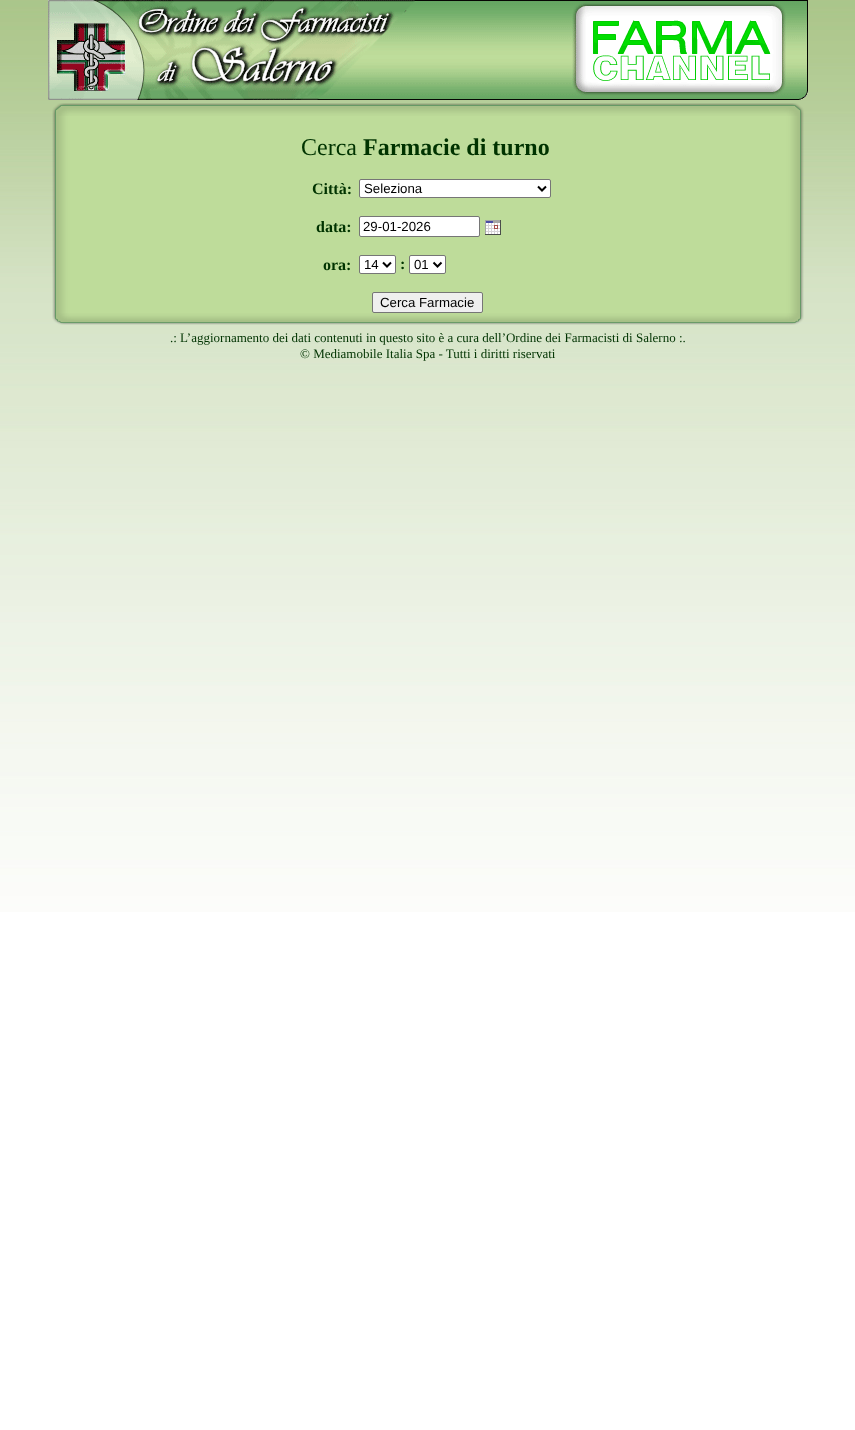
<?xml version="1.0" encoding="UTF-8"?>
<svg xmlns="http://www.w3.org/2000/svg" width="855" height="1430">
    <rect width="100%" height="100%" fill="#FFFFFF"/>
    <image x="0" y="0" width="855" height="912" href="img_01.png"/>
    <image x="48" y="0" width="760" height="100" href="img_02.png"/>
    <image x="52" y="103" width="752" height="13" href="img_03.png"/>
    <image x="52" y="116" width="752" height="197" href="img_04.png"/>
    <text x="301" y="155" font-family="Liberation Serif" font-size="24" fill="#003300">Cerca</text>
    <text x="363" y="155" font-family="Liberation Serif" font-size="24" font-weight="700" fill="#003300">Farmacie di turno</text>
    <text x="312" y="194" font-family="Liberation Serif" font-size="16" font-weight="700" fill="#003300">Città:</text>
    <rect x="359.5" y="179.5" width="191" height="18" rx="1.5" fill="#FFFFFF" stroke="#767676"/>
    <path d="M 538 186.5 L 542 190.5 L 546 186.5" fill="none" stroke="#000000" stroke-width="2"/>
    <text x="364" y="193" font-family="Liberation Sans" font-size="13.25" fill="#000000">Seleziona</text>
    <text x="316" y="232" font-family="Liberation Serif" font-size="16" font-weight="700" fill="#003300">data:</text>
    <rect x="359.5" y="216.5" width="120" height="20" rx="1.5" fill="#FFFFFF" stroke="#767676"/>
    <text x="363" y="231" font-family="Liberation Sans" font-size="13.25" fill="#000000">29-01-2026</text>
    <image x="485" y="220" width="16" height="15" href="img_05.png"/>
    <text x="323" y="270" font-family="Liberation Serif" font-size="16" font-weight="700" fill="#003300">ora:</text>
    <rect x="359.5" y="255.5" width="36" height="18" rx="1.5" fill="#FFFFFF" stroke="#767676"/>
    <path d="M 383 262.5 L 387 266.5 L 391 262.5" fill="none" stroke="#000000" stroke-width="2"/>
    <text x="364" y="269" font-family="Liberation Sans" font-size="13.25" fill="#000000">14</text>
    <text x="400" y="269" font-family="Liberation Serif" font-size="16" font-weight="700" fill="#003300">:</text>
    <rect x="409.5" y="255.5" width="36" height="18" rx="1.5" fill="#FFFFFF" stroke="#767676"/>
    <path d="M 433.5 262.5 L 437.5 266.5 L 441.5 262.5" fill="none" stroke="#000000" stroke-width="2"/>
    <text x="414" y="269" font-family="Liberation Sans" font-size="13.25" fill="#000000">01</text>
    <rect x="372.5" y="292.5" width="110" height="20" rx="1.5" fill="#EFEFEF" stroke="#767676"/>
    <text x="380" y="307" font-family="Liberation Sans" font-size="13.25" fill="#000000">Cerca Farmacie</text>
    <image x="52" y="313" width="752" height="12" href="img_06.png"/>
    <text x="170" y="342" font-family="Liberation Serif" font-size="13" fill="#003300">.: L’aggiornamento dei dati contenuti in questo sito è a cura dell’Ordine dei Farmacisti di Salerno :.</text>
    <text x="300" y="358" font-family="Liberation Serif" font-size="13" fill="#003300">© Mediamobile Italia Spa - Tutti i diritti riservati</text>
</svg>
